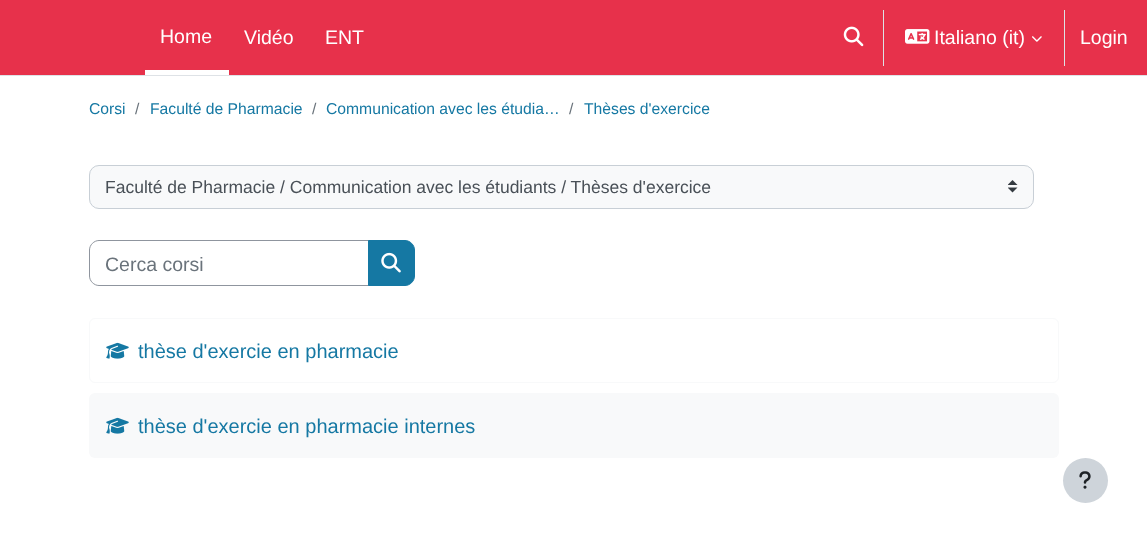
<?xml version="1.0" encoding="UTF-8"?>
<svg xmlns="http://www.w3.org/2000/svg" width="1147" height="542">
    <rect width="100%" height="100%" fill="#FFFFFF"/>
    <rect x="0" y="0" width="1147" height="75" fill="#E7314B"/>
    <rect x="0" y="75" width="1147" height="1" fill="#DEE2E6"/>
    <rect x="145" y="70" width="84" height="5" fill="#FFFFFF"/>
    <text x="160" y="43" font-family="Liberation Sans" font-size="19.5" fill="#FFFFFF">Home</text>
    <text x="244" y="44" font-family="Liberation Sans" font-size="19.5" fill="#FFFFFF">Vidéo</text>
    <text x="325" y="44" font-family="Liberation Sans" font-size="19.5" fill="#FFFFFF">ENT</text>
    <image x="843" y="26" width="21" height="21" href="img_01.png"/>
    <rect x="883" y="10" width="1" height="56" fill="#DEE2E6"/>
    <image x="905" y="29" width="25" height="15" href="img_02.png"/>
    <text x="934" y="44" font-family="Liberation Sans" font-size="19.5" fill="#FFFFFF">Italiano (it)</text>
    <image x="1032" y="36" width="10" height="6" href="img_03.png"/>
    <rect x="1064" y="10" width="1" height="56" fill="#DEE2E6"/>
    <text x="1080" y="44" font-family="Liberation Sans" font-size="19.5" fill="#FFFFFF">Login</text>
    <text x="89" y="114" font-family="Liberation Sans" font-size="15.7" fill="#1578A3">Corsi</text>
    <text x="135" y="114" font-family="Liberation Sans" font-size="15.7" fill="#6A737B">/</text>
    <text x="150" y="114" font-family="Liberation Sans" font-size="15.7" fill="#1578A3">Faculté de Pharmacie</text>
    <text x="312" y="114" font-family="Liberation Sans" font-size="15.7" fill="#6A737B">/</text>
    <text x="326" y="114" font-family="Liberation Sans" font-size="15.7" fill="#1578A3">Communication avec les étudia…</text>
    <text x="569" y="114" font-family="Liberation Sans" font-size="15.7" fill="#6A737B">/</text>
    <text x="584" y="114" font-family="Liberation Sans" font-size="15.7" fill="#1578A3">Thèses d'exercice</text>
    <rect x="89" y="165" width="945" height="44" rx="10" fill="#F8F9FA"/>
    <image x="1008" y="180" width="10" height="13" href="img_04.png"/>
    <rect x="89.5" y="165.5" width="944" height="43" rx="9.5" fill="none" stroke="#C8CFD6"/>
    <text x="105" y="193" font-family="Liberation Sans" font-size="17.5" fill="#495057">Faculté de Pharmacie / Communication avec les étudiants / Thèses d'exercice</text>
    <path d="M 99 240.5 H 368.5 V 285.5 H 99 C 94 285.5 89.5 281 89.5 276 V 250 C 89.5 245 94 240.5 99 240.5 Z" fill="none" stroke="#8F959E"/>
    <text x="105" y="271" font-family="Liberation Sans" font-size="19.5" fill="#6A737B">Cerca corsi</text>
    <path d="M 368.5 240.5 H 405 C 410 240.5 414.5 245 414.5 250 V 276 C 414.5 281 410 285.5 405 285.5 H 368.5 Z" fill="#1578A3" stroke="#1578A3"/>
    <image x="381" y="252" width="20" height="21" href="img_05.png"/>
    <rect x="89.5" y="318.5" width="969" height="64" rx="5.5" fill="none" stroke="#F8F9FA"/>
    <image x="106" y="342" width="23" height="17" href="img_06.png"/>
    <text x="138" y="358" font-family="Liberation Sans" font-size="20" fill="#1578A3">thèse d'exercie en pharmacie</text>
    <rect x="89" y="393" width="970" height="65" rx="6" fill="#F8F9FA"/>
    <image x="106" y="417" width="23" height="17" href="img_07.png"/>
    <text x="138" y="433" font-family="Liberation Sans" font-size="20" fill="#1578A3">thèse d'exercie en pharmacie internes</text>
    <circle cx="1085.5" cy="480.5" r="22.5" fill="#CED4DA"/>
    <image x="1079" y="471" width="12" height="18" href="img_08.png"/>
</svg>
